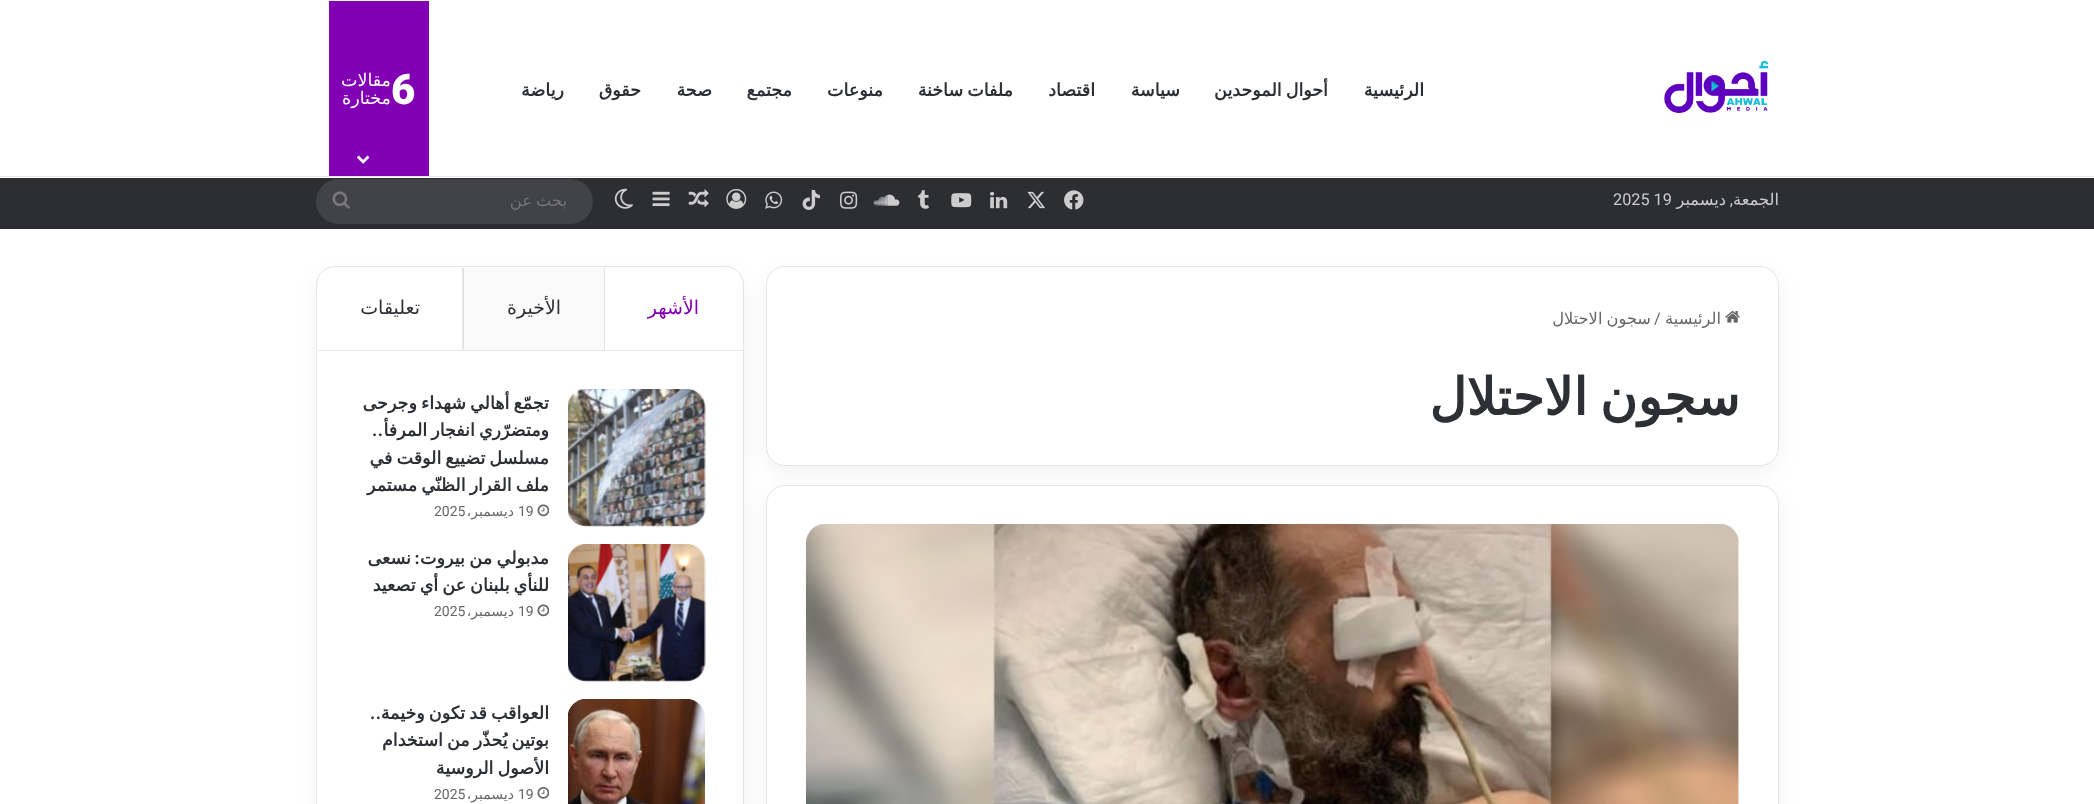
<?xml version="1.0" encoding="UTF-8"?>
<svg xmlns="http://www.w3.org/2000/svg" width="2094" height="804">
    <defs>
        <filter id="blur1" x="-50%" y="-200%" width="200%" height="500%"><feGaussianBlur stdDeviation="9.5"/></filter>
    </defs>
    <rect width="100%" height="100%" fill="#FFFFFF"/>
    <rect x="0" y="176" width="2094" height="1" fill="#E6E6E6"/>
    <image x="1664" y="60" width="105" height="53" href="img_01.png"/>
    <text x="1424" y="96" font-family="DejaVu Sans" font-size="17.5" font-weight="700" direction="rtl" fill="#2C2F34">الرئيسية</text>
    <text x="1328" y="96" word-spacing="-1.5" font-family="DejaVu Sans" font-size="17.5" font-weight="700" direction="rtl" fill="#2C2F34">أحوال الموحدين</text>
    <text x="1180" y="96" font-family="DejaVu Sans" font-size="17.5" font-weight="700" direction="rtl" fill="#2C2F34">سياسة</text>
    <text x="1095" y="96" font-family="DejaVu Sans" font-size="17.5" font-weight="700" direction="rtl" fill="#2C2F34">اقتصاد</text>
    <text x="1013" y="96" word-spacing="-1.5" font-family="DejaVu Sans" font-size="17.5" font-weight="700" direction="rtl" fill="#2C2F34">ملفات ساخنة</text>
    <text x="883" y="96" font-family="DejaVu Sans" font-size="17.5" font-weight="700" direction="rtl" fill="#2C2F34">منوعات</text>
    <text x="792" y="96" font-family="DejaVu Sans" font-size="17.5" font-weight="700" direction="rtl" fill="#2C2F34">مجتمع</text>
    <text x="712" y="96" font-family="DejaVu Sans" font-size="17.5" font-weight="700" direction="rtl" fill="#2C2F34">صحة</text>
    <text x="641" y="96" font-family="DejaVu Sans" font-size="17.5" font-weight="700" direction="rtl" fill="#2C2F34">حقوق</text>
    <text x="564" y="96" font-family="DejaVu Sans" font-size="17.5" font-weight="700" direction="rtl" fill="#2C2F34">رياضة</text>
    <rect x="329" y="1" width="100" height="175" fill="#8100B5"/>
    <text x="391" y="104" font-family="Roboto" font-size="42" font-weight="900" fill="#FFFFFF">6</text>
    <text font-family="DejaVu Sans" font-size="17.5" direction="rtl" fill="#FFFFFF">
        <tspan x="391" y="86">مقالات</tspan>
        <tspan x="391" y="104">مختارة</tspan>
    </text>
    <image x="357" y="155" width="13" height="9" href="img_02.png"/>
    <rect x="0" y="178" width="2094" height="50" fill="#2C2E32"/>
    <rect x="0" y="228" width="2094" height="1" fill="#28292D"/>
    <text x="1779" y="205" font-family="DejaVu Sans" font-size="16.25" direction="rtl" fill="#CCCCCC">الجمعة</text>
    <text x="1733" y="205" font-family="Roboto" font-size="16.25" direction="rtl" fill="#CCCCCC">,</text>
    <text x="1726" y="205" font-family="DejaVu Sans" font-size="16.25" direction="rtl" fill="#CCCCCC">ديسمبر</text>
    <text x="1613" y="205" font-family="Roboto" font-size="16.25" fill="#CCCCCC">2025 19</text>
    <image x="1064" y="190" width="20" height="20" href="img_03.png"/>
    <image x="1027" y="191" width="19" height="18" href="img_04.png"/>
    <image x="990" y="191" width="18" height="18" href="img_05.png"/>
    <image x="951" y="193" width="21" height="15" href="img_06.png"/>
    <image x="918" y="190" width="11" height="19" href="img_07.png"/>
    <image x="873" y="194" width="27" height="12" href="img_08.png"/>
    <image x="840" y="191" width="18" height="18" href="img_09.png"/>
    <image x="802" y="190" width="18" height="20" href="img_10.png"/>
    <image x="765" y="191" width="18" height="18" href="img_11.png"/>
    <image x="726" y="188" width="21" height="21" href="img_12.png"/>
    <image x="688" y="189" width="21" height="19" href="img_13.png"/>
    <image x="652" y="191" width="18" height="16" href="img_14.png"/>
    <image x="614" y="188" width="19" height="21" href="img_15.png"/>
    <rect x="316" y="179" width="277" height="45" rx="22.5" fill="#414347"/>
    <text x="567" y="206" word-spacing="-1" font-family="DejaVu Sans" font-size="16.25" direction="rtl" fill="#757575">بحث عن</text>
    <image x="332" y="191" width="18" height="18" href="img_16.png"/>
    <rect x="766" y="273" width="1013" height="200" rx="19" fill="#000000" fill-opacity="0.05" filter="url(#blur1)"/>
    <rect x="766.5" y="266.5" width="1012" height="199" rx="18.5" fill="#FFFFFF" stroke="#E5E5E5"/>
    <image x="1725" y="311" width="15" height="12" href="img_17.png"/>
    <text x="1721" y="324" font-family="DejaVu Sans" font-size="16.25" direction="rtl" fill="#666666">الرئيسية</text>
    <text x="1654" y="324" font-family="Roboto" font-size="16.25" fill="#666666">/</text>
    <text x="1651" y="324" word-spacing="-1" font-family="DejaVu Sans" font-size="16.25" direction="rtl" fill="#666666">سجون الاحتلال</text>
    <text x="1740" y="415" word-spacing="-4" font-family="DejaVu Sans" font-size="51.25" font-weight="700" direction="rtl" fill="#2C2F34">سجون الاحتلال</text>
    <rect x="766" y="491" width="1013" height="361" rx="19" fill="#000000" fill-opacity="0.05" filter="url(#blur1)"/>
    <rect x="766.5" y="485.5" width="1012" height="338" rx="18.5" fill="#FFFFFF" stroke="#E5E5E5"/>
    <image x="806" y="524" width="933" height="280" href="img_18.png"/>
    <rect x="316" y="273" width="428" height="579" rx="19" fill="#000000" fill-opacity="0.05" filter="url(#blur1)"/>
    <rect x="316.5" y="266.5" width="427" height="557" rx="18.5" fill="#FFFFFF" stroke="#E5E5E5"/>
    <rect x="318" y="350" width="425" height="1" fill="#E6E6E6"/>
    <path d="M 604 268 H 605 V 349 L 604 350 Z" fill="#E4E4E6"/>
    <text x="699" y="314" font-family="DejaVu Sans" font-size="19" direction="rtl" fill="#8100B5">الأشهر</text>
    <rect x="463" y="268" width="141" height="82" fill="#FAFAFA"/>
    <path d="M 462 350 V 268 H 464 V 349 Z" fill="#000000" fill-opacity="0.1"/>
    <text x="561" y="314" font-family="DejaVu Sans" font-size="19" direction="rtl" fill="#2C2F34">الأخيرة</text>
    <text x="420" y="314" font-family="DejaVu Sans" font-size="19" direction="rtl" fill="#2C2F34">تعليقات</text>
    <image x="568" y="389" width="138" height="138" href="img_19.png"/>
    <text font-family="DejaVu Sans" font-size="17.5" font-weight="700" direction="rtl" fill="#2C2F34">
        <tspan x="549" y="409" word-spacing="-1.5">تجمّع أهالي شهداء وجرحى</tspan>
        <tspan x="549" y="436" word-spacing="-1.5">ومتضرّري انفجار المرفأ</tspan>
    </text>
    <text x="383" y="436" font-family="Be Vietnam" font-size="17.5" font-weight="700" direction="rtl" fill="#2C2F34">..</text>
    <text font-family="DejaVu Sans" font-size="17.5" font-weight="700" direction="rtl" fill="#2C2F34">
        <tspan x="549" y="464" word-spacing="-1.5">مسلسل تضييع الوقت في</tspan>
        <tspan x="549" y="491" word-spacing="-1.5">ملف القرار الظنّي مستمر</tspan>
    </text>
    <image x="537" y="504" width="12" height="13" href="img_20.png"/>
    <text x="518" y="516" font-family="Roboto" font-size="14" fill="#666666">19</text>
    <text x="514" y="516" font-family="DejaVu Sans" font-size="14" direction="rtl" fill="#666666">ديسمبر،</text>
    <text x="434" y="516" font-family="Roboto" font-size="14" fill="#666666">2025</text>
    <image x="568" y="544" width="138" height="138" href="img_21.png"/>
    <text x="549" y="564" word-spacing="-1" font-family="DejaVu Sans" font-size="17.5" font-weight="700" direction="rtl" fill="#2C2F34">مدبولي من بيروت</text>
    <text x="420" y="564" font-family="Be Vietnam" font-size="17.5" font-weight="700" direction="rtl" fill="#2C2F34">:</text>
    <text x="411" y="564" font-family="DejaVu Sans" font-size="17.5" font-weight="700" direction="rtl" fill="#2C2F34">نسعى</text>
    <text x="549" y="591" word-spacing="-1.5" font-family="DejaVu Sans" font-size="17.5" font-weight="700" direction="rtl" fill="#2C2F34">للنأي بلبنان عن أي تصعيد</text>
    <image x="537" y="604" width="12" height="13" href="img_20.png"/>
    <text x="518" y="616" font-family="Roboto" font-size="14" fill="#666666">19</text>
    <text x="514" y="616" font-family="DejaVu Sans" font-size="14" direction="rtl" fill="#666666">ديسمبر،</text>
    <text x="434" y="616" font-family="Roboto" font-size="14" fill="#666666">2025</text>
    <image x="568" y="699" width="137" height="105" href="img_22.png"/>
    <text x="549" y="719" word-spacing="-1.5" font-family="DejaVu Sans" font-size="17.5" font-weight="700" direction="rtl" fill="#2C2F34">العواقب قد تكون وخيمة</text>
    <text x="381" y="719" font-family="Be Vietnam" font-size="17.5" font-weight="700" direction="rtl" fill="#2C2F34">..</text>
    <text font-family="DejaVu Sans" font-size="17.5" font-weight="700" direction="rtl" fill="#2C2F34">
        <tspan x="549" y="746" word-spacing="-1.5">بوتين يُحذّر من استخدام</tspan>
        <tspan x="549" y="774" word-spacing="-1.5">الأصول الروسية</tspan>
    </text>
    <image x="537" y="787" width="12" height="12" href="img_23.png"/>
    <text x="518" y="799" font-family="Roboto" font-size="14" fill="#666666">19</text>
    <text x="514" y="799" font-family="DejaVu Sans" font-size="14" direction="rtl" fill="#666666">ديسمبر،</text>
    <text x="434" y="799" font-family="Roboto" font-size="14" fill="#666666">2025</text>
</svg>
